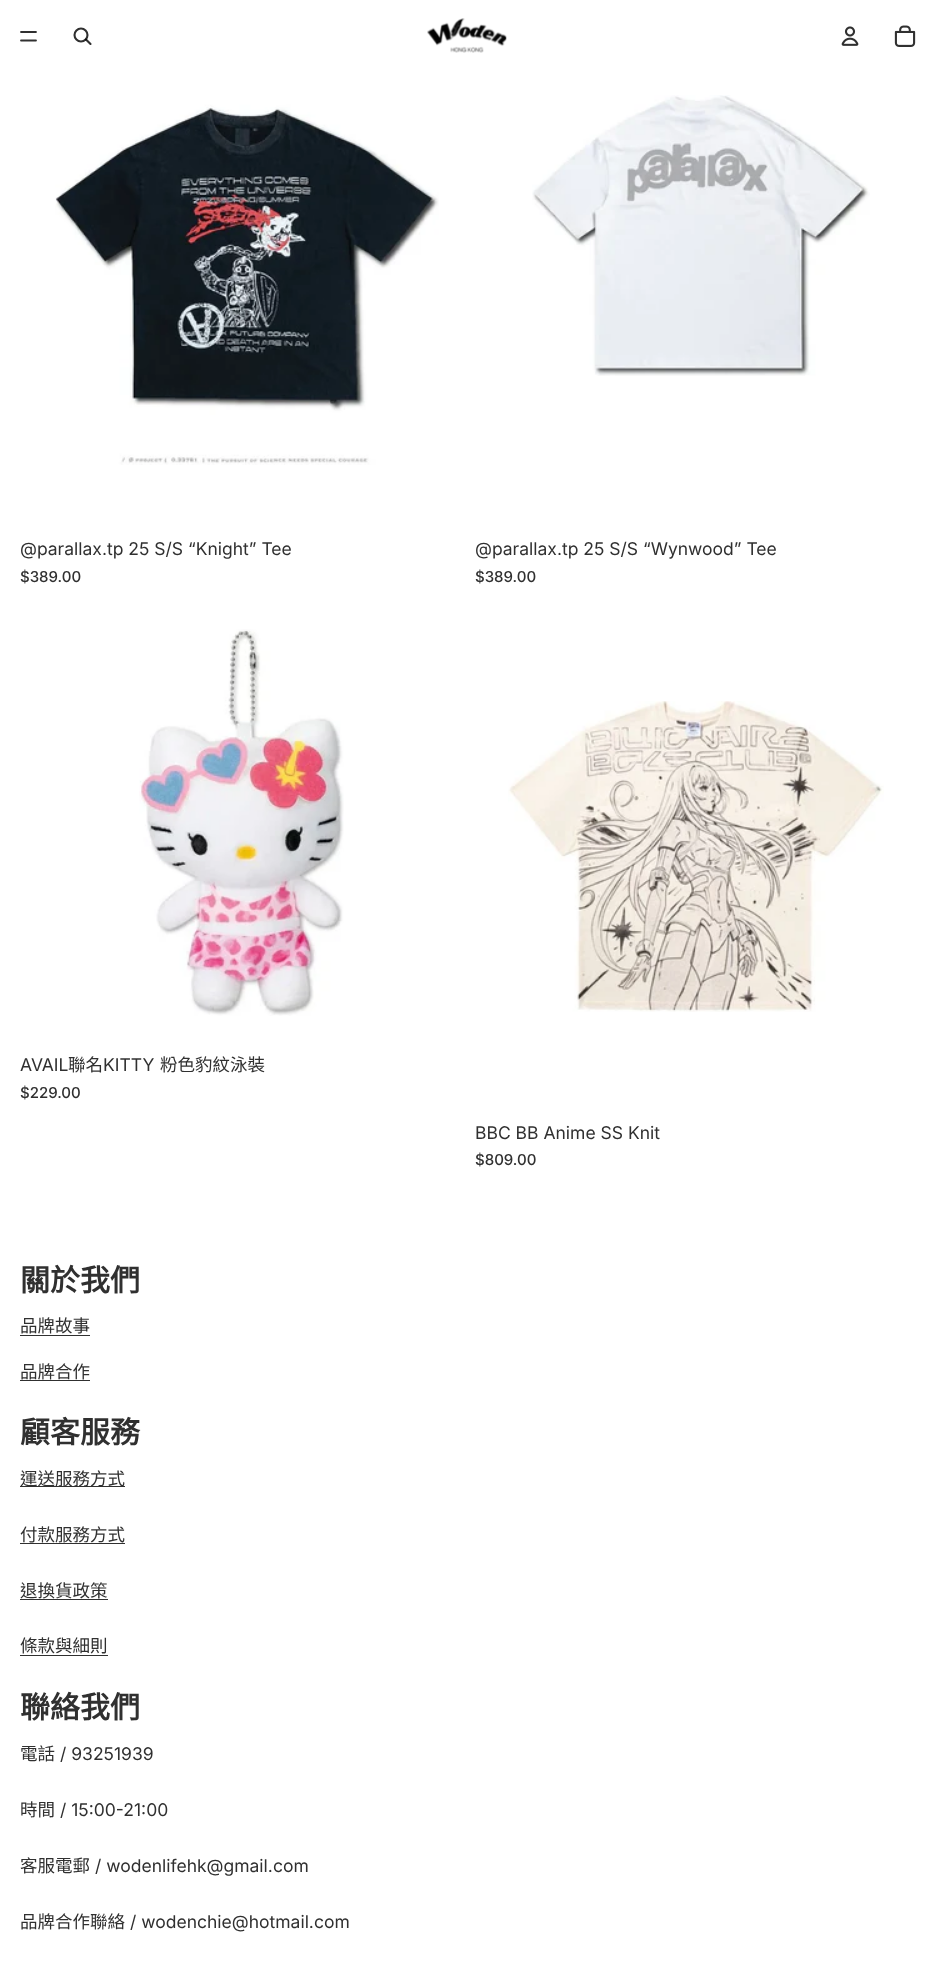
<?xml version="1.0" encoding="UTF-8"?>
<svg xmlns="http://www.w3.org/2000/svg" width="935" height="1978">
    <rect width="100%" height="100%" fill="#FFFFFF"/>
    <path d="M 21 32 H 36 M 21 40.5 H 36" fill="none" stroke="#303030" stroke-width="1.8" stroke-linecap="round"/>
    <circle cx="81" cy="35" r="6.5" fill="none" stroke="#303030" stroke-width="2.1"/>
    <path d="M 86 39.5 L 90.5 44" fill="none" stroke="#000000" stroke-opacity="0.81" stroke-width="2.1" stroke-linecap="round" stroke-linejoin="round"/>
    <image x="427" y="18" width="80" height="35" href="img_01.png"/>
    <image x="841" y="26" width="18" height="20" href="img_02.png"/>
    <image x="894" y="25" width="22" height="22" href="img_03.png"/>
    <image x="55" y="74" width="384" height="391" href="img_04.png"/>
    <text x="20" y="555" font-family="Inter" font-size="17.5" fill="#303030">@parallax.tp 25 S/S “Knight” Tee</text>
    <text x="20" y="582" font-family="Inter" font-size="15" font-weight="500" fill="#303030">$389.00</text>
    <image x="532" y="95" width="338" height="281" href="img_05.png"/>
    <text x="475" y="555" font-family="Inter" font-size="17.5" fill="#303030">@parallax.tp 25 S/S “Wynwood” Tee</text>
    <text x="475" y="582" font-family="Inter" font-size="15" font-weight="500" fill="#303030">$389.00</text>
    <image x="139" y="629" width="205" height="387" href="img_06.png"/>
    <text x="20" y="1071" font-family="Inter" font-size="17.5" fill="#303030">AVAIL</text>
    <text x="68" y="1071" font-family="Noto Sans CJK TC" font-size="17.5" fill="#303030">聯名</text>
    <text x="103" y="1071" font-family="Inter" font-size="17.5" fill="#303030">KITTY</text>
    <text x="160" y="1071" font-family="Noto Sans CJK TC" font-size="17.5" fill="#303030">粉色豹紋泳裝</text>
    <text x="20" y="1098" font-family="Inter" font-size="15" font-weight="500" fill="#303030">$229.00</text>
    <image x="508" y="701" width="376" height="311" href="img_07.png"/>
    <text x="475" y="1139" font-family="Inter" font-size="17.5" fill="#303030">BBC BB Anime SS Knit</text>
    <text x="475" y="1165" font-family="Inter" font-size="15" font-weight="500" fill="#303030">$809.00</text>
    <text x="20" y="1291" font-family="Noto Sans CJK TC" font-size="30" font-weight="700" fill="#303030">關於我們</text>
    <text x="20" y="1332" font-family="Noto Sans CJK TC" font-size="17.5" fill="#303030">品牌故事</text>
    <rect x="20" y="1335" width="70" height="1" fill="#303030"/>
    <text x="20" y="1378" font-family="Noto Sans CJK TC" font-size="17.5" fill="#303030">品牌合作</text>
    <rect x="20" y="1380" width="70" height="1" fill="#303030"/>
    <text x="20" y="1443" font-family="Noto Sans CJK TC" font-size="30" font-weight="700" fill="#303030">顧客服務</text>
    <rect x="20" y="1486" width="105" height="1" fill="#303030"/>
    <text x="20" y="1485" font-family="Noto Sans CJK TC" font-size="17.5" fill="#303030">運送服務方式</text>
    <text x="20" y="1541" font-family="Noto Sans CJK TC" font-size="17.5" fill="#303030">付款服務方式</text>
    <rect x="20" y="1543" width="105" height="1" fill="#303030"/>
    <text x="20" y="1597" font-family="Noto Sans CJK TC" font-size="17.5" fill="#303030">退換貨政策</text>
    <rect x="20" y="1599" width="88" height="1" fill="#303030"/>
    <text x="20" y="1652" font-family="Noto Sans CJK TC" font-size="17.5" fill="#303030">條款與細則</text>
    <rect x="20" y="1655" width="88" height="1" fill="#303030"/>
    <text x="20" y="1718" font-family="Noto Sans CJK TC" font-size="30" font-weight="700" fill="#303030">聯絡我們</text>
    <text x="20" y="1760" font-family="Noto Sans CJK TC" font-size="17.5" fill="#303030">電話</text>
    <text x="60" y="1760" font-family="Inter" font-size="17.5" fill="#303030">/ 93251939</text>
    <text x="20" y="1816" font-family="Noto Sans CJK TC" font-size="17.5" fill="#303030">時間</text>
    <text x="60" y="1816" font-family="Inter" font-size="17.5" fill="#303030">/ 15:00-21:00</text>
    <text x="20" y="1872" font-family="Noto Sans CJK TC" font-size="17.5" fill="#303030">客服電郵</text>
    <text x="95" y="1872" font-family="Inter" font-size="17.5" fill="#303030">/ wodenlifehk@gmail.com</text>
    <text x="20" y="1928" font-family="Noto Sans CJK TC" font-size="17.5" fill="#303030">品牌合作聯絡</text>
    <text x="130" y="1928" font-family="Inter" font-size="17.5" fill="#303030">/ wodenchie@hotmail.com</text>
</svg>
